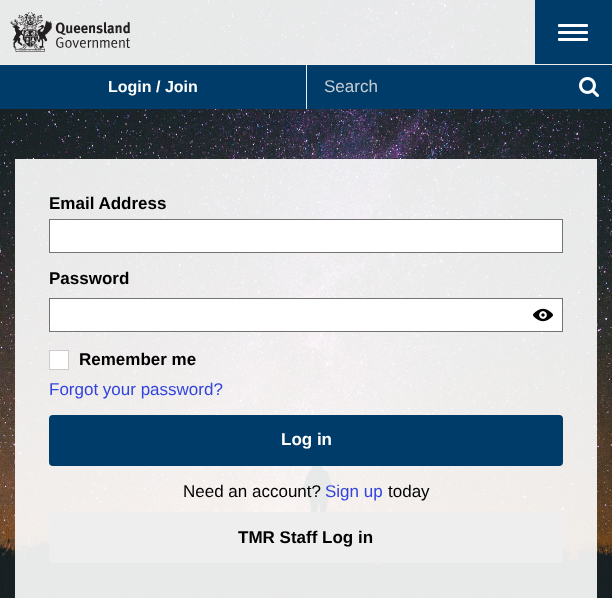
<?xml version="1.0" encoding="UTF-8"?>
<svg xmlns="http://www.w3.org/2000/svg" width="612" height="598">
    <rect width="100%" height="100%" fill="#FFFFFF"/>
    <image x="0" y="0" width="612" height="598" href="img_01.png"/>
    <rect x="0" y="0" width="535" height="64" fill="#FFFFFF" fill-opacity="0.9"/>
    <rect x="0" y="64" width="612" height="1" fill="#EEEEEE"/>
    <image x="10" y="12" width="120" height="40" href="img_02.png"/>
    <rect x="535" y="0" width="77" height="64" fill="#003C69"/>
    <rect x="558" y="24" width="30" height="3" rx="1" fill="#FFFFFF"/>
    <rect x="558" y="31" width="30" height="3" rx="1" fill="#FFFFFF"/>
    <rect x="558" y="38" width="30" height="3" rx="1" fill="#FFFFFF"/>
    <rect x="0" y="65" width="306" height="44" fill="#003C69"/>
    <text x="108" y="92" font-family="Liberation Sans" font-size="16" font-weight="700" fill="#FFFFFF">Login / Join</text>
    <rect x="307" y="65" width="305" height="44" fill="#003C69"/>
    <rect x="306" y="65" width="1" height="44" fill="#EEEEEE"/>
    <text x="324" y="92" font-family="Liberation Sans" font-size="17" fill="#C8CDD2">Search</text>
    <image x="579" y="77" width="20" height="20" href="img_03.png"/>
    <rect x="15" y="159" width="582" height="439" fill="#FFFFFF" fill-opacity="0.9"/>
    <text x="49" y="209" font-family="Liberation Sans" font-size="17" font-weight="700" fill="#000000">Email Address</text>
    <rect x="49.5" y="219.5" width="513" height="33" fill="#FFFFFF" stroke="#737373"/>
    <text x="49" y="284" font-family="Liberation Sans" font-size="17" font-weight="700" fill="#000000">Password</text>
    <rect x="49.5" y="298.5" width="513" height="33" fill="#FFFFFF" stroke="#737373"/>
    <image x="533" y="308" width="20" height="14" href="img_04.png"/>
    <rect x="49.5" y="350.5" width="19" height="19" fill="#FFFFFF" stroke="#CCCCCC"/>
    <text x="79" y="365" font-family="Liberation Sans" font-size="17" font-weight="700" fill="#000000">Remember me</text>
    <text x="49" y="395" font-family="Liberation Sans" font-size="17" fill="#3344DD">Forgot your password?</text>
    <rect x="50" y="416" width="512" height="49" rx="3" fill="#003C69" stroke="#003C69" stroke-width="2"/>
    <text x="281" y="445" font-family="Liberation Sans" font-size="17" font-weight="700" fill="#FFFFFF">Log in</text>
    <text x="183" y="497" font-family="Liberation Sans" font-size="17" fill="#000000">Need an account?</text>
    <text x="325" y="497" font-family="Liberation Sans" font-size="17" fill="#3344DD">Sign up</text>
    <text x="388" y="497" font-family="Liberation Sans" font-size="17" fill="#000000">today</text>
    <rect x="49" y="512" width="514" height="51" rx="4" fill="#EEEEEE"/>
    <text x="238" y="543" font-family="Liberation Sans" font-size="17" font-weight="700" fill="#000000">TMR Staff Log in</text>
</svg>
